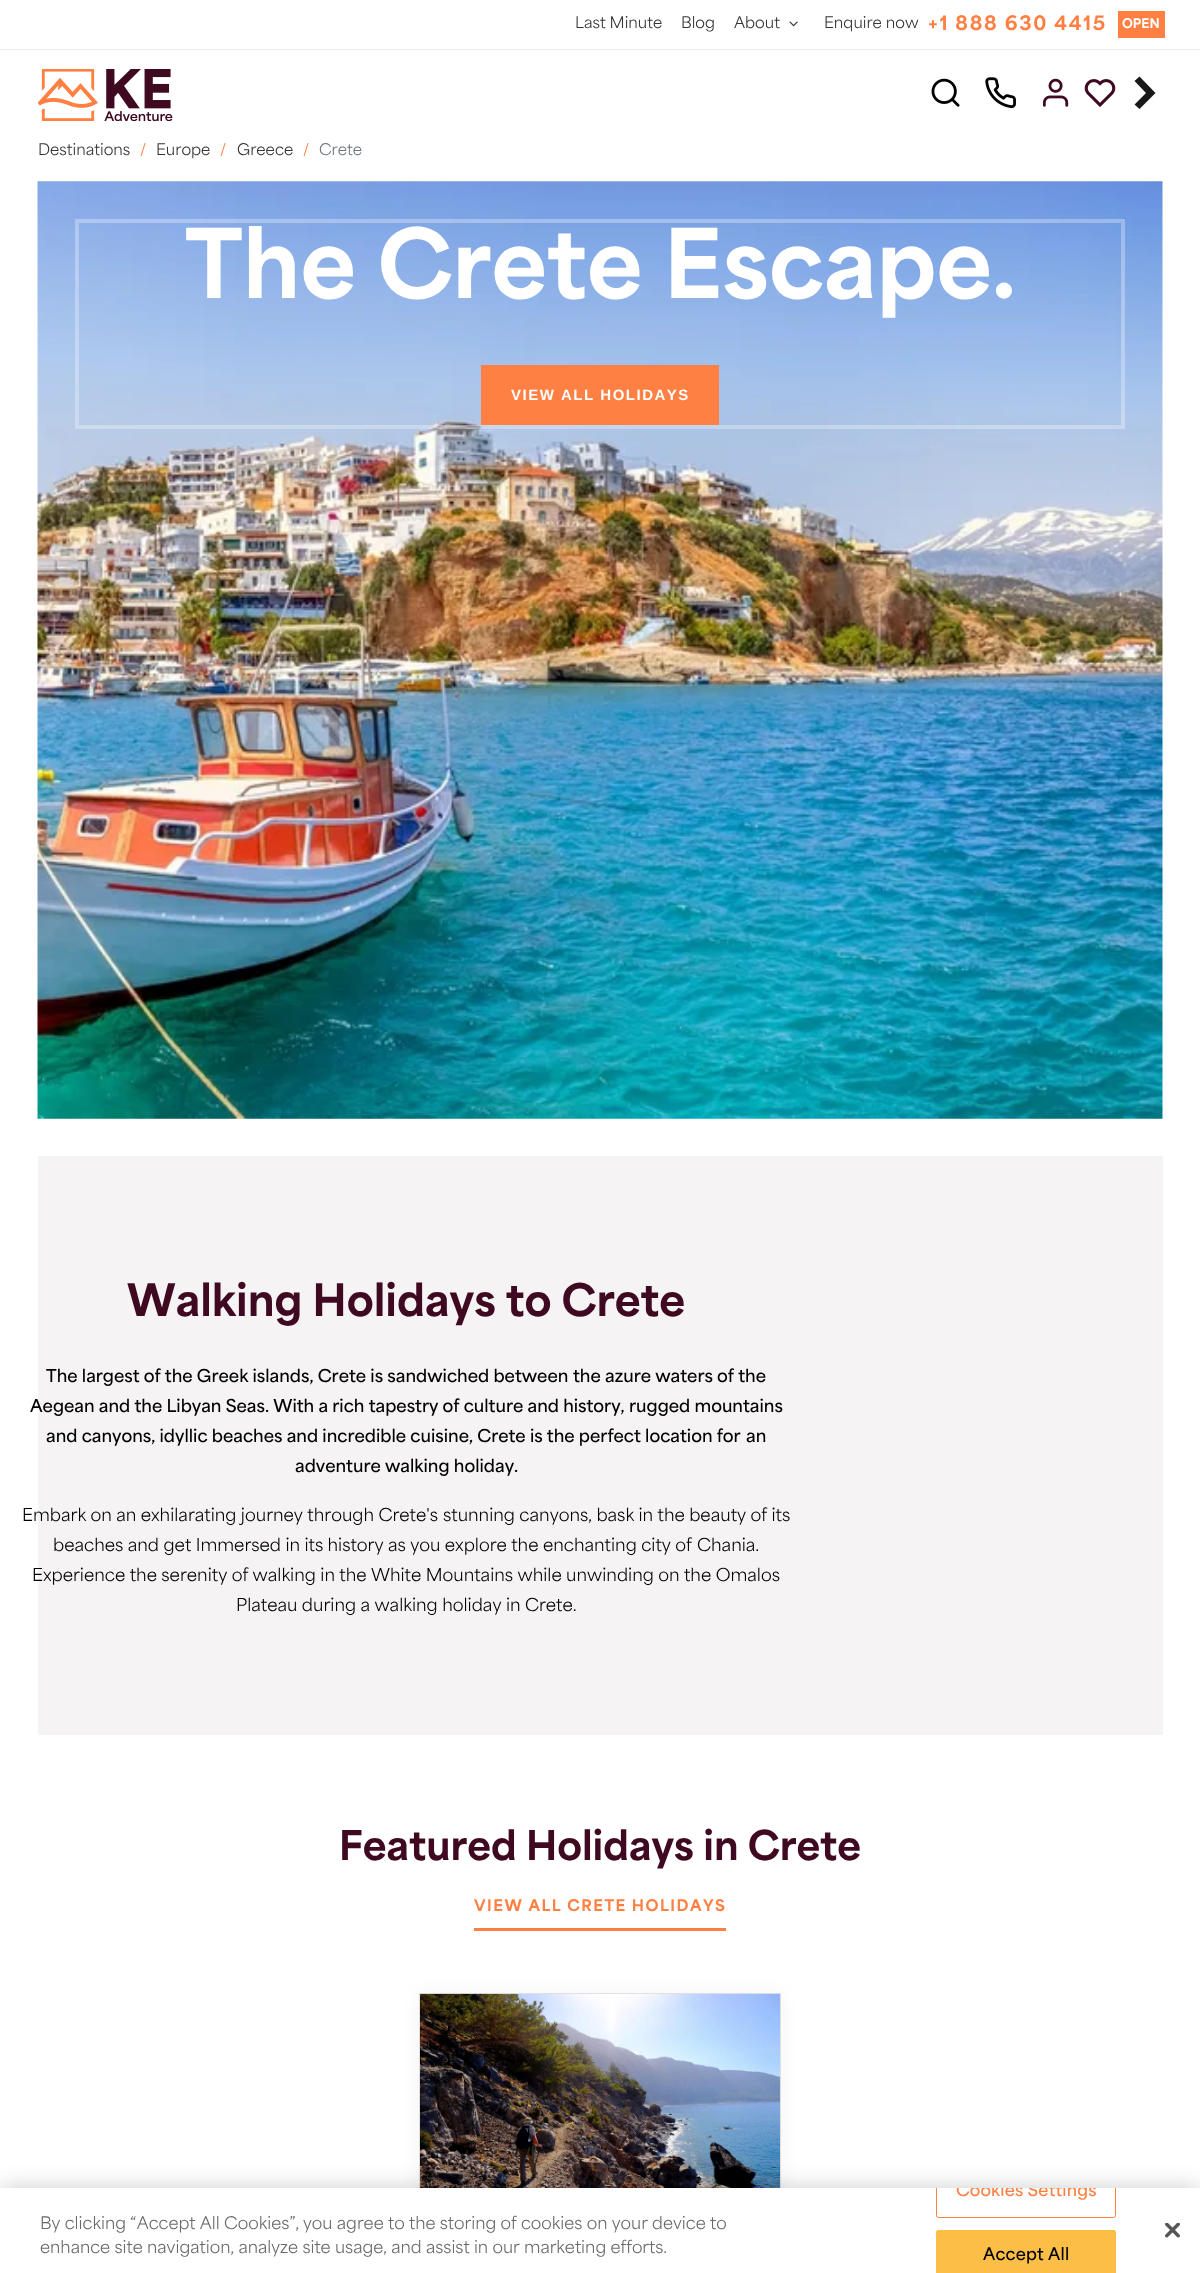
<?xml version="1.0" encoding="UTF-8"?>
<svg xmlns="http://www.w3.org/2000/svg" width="1200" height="2273">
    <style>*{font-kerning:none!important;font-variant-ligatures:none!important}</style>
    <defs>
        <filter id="blur1" x="-50%" y="-200%" width="200%" height="500%"><feGaussianBlur stdDeviation="9.5"/></filter>
        <filter id="blur2" x="-50%" y="-200%" width="200%" height="500%"><feGaussianBlur stdDeviation="11"/></filter>
        <clipPath id="clip1"><rect x="0" y="2188" width="1200" height="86"/></clipPath>
    </defs>
    <rect width="100%" height="100%" fill="#FFFFFF"/>
    <rect x="0" y="49" width="1200" height="1" fill="#EAEAEA"/>
    <text x="575" y="28" font-family="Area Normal" font-size="15" fill="#333333">Last Minute</text>
    <text x="681" y="28" font-family="Area Normal" font-size="15" fill="#333333">Blog</text>
    <text x="734" y="28" font-family="Area Normal" font-size="15" fill="#333333">About</text>
    <image x="789" y="21" width="9" height="6" href="img_01.png"/>
    <text x="824" y="28" font-family="Area Normal" font-size="15" fill="#333333">Enquire now</text>
    <text x="928" y="30" font-family="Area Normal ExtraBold" font-size="18.75" font-weight="800" letter-spacing="1.75" fill="#FF8042">+1 888 630 4415</text>
    <rect x="1118" y="11" width="47" height="27" fill="#FF8042"/>
    <text x="1122" y="28" font-family="Area Normal ExtraBold" font-size="12.5" font-weight="800" fill="#FFFFFF">OPEN</text>
    <image x="38" y="69" width="135" height="52" href="img_02.png"/>
    <image x="931" y="78" width="29" height="29" href="img_03.png"/>
    <image x="985" y="77" width="31" height="32" href="img_04.png"/>
    <image x="1042" y="78" width="27" height="29" href="img_05.png"/>
    <image x="1084" y="79" width="32" height="28" href="img_06.png"/>
    <path d="M 1139.5 76.5 L 1155.5 93 L 1139.5 109 L 1134.5 104.5 L 1146 93 L 1134.5 81 Z" fill="#191919"/>
    <text x="38" y="155" font-family="Area Normal" font-size="15" fill="#333333">Destinations</text>
    <text x="140" y="155" font-family="Area Normal" font-size="15" fill="#FF8042">/</text>
    <text x="156" y="155" font-family="Area Normal" font-size="15" fill="#333333">Europe</text>
    <text x="220" y="155" font-family="Area Normal" font-size="15" fill="#FF8042">/</text>
    <text x="237" y="155" font-family="Area Normal" font-size="15" fill="#333333">Greece</text>
    <text x="303" y="155" font-family="Area Normal" font-size="15" fill="#FF8042">/</text>
    <text x="319" y="155" font-family="Area Normal" font-size="15" fill="#6C757D">Crete</text>
    <image x="37" y="181" width="1126" height="938" href="img_07.png"/>
    <rect x="77" y="221" width="1046" height="206" fill="none" stroke="#FFFFFF" stroke-opacity="0.3" stroke-width="4"/>
    <text x="185" y="298" font-family="Area Normal ExtraBold" font-size="90" font-weight="800" fill="#FFFFFF">The Crete Escape.</text>
    <rect x="481" y="365" width="238" height="60" fill="#FF8042"/>
    <text x="511" y="400" font-family="Liberation Sans" font-size="15" font-weight="700" letter-spacing="1.5" fill="#FFFFFF">VIEW ALL HOLIDAYS</text>
    <rect x="38" y="1156" width="1125" height="579" fill="#F5F3F4"/>
    <text x="127" y="1316" font-family="Area Normal ExtraBold" font-size="42" font-weight="800" fill="#3F0A21">Walking Holidays to Crete</text>
    <text x="46" y="1382" font-family="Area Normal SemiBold" font-size="16.7" font-weight="600" fill="#000000">The largest of the Greek islands, Crete is sandwiched between</text>
    <text x="573" y="1382" font-family="Area Normal SemiBold" font-size="16.7" font-weight="600" fill="#000000">the azure waters of the</text>
    <text x="30" y="1412" font-family="Area Normal SemiBold" font-size="16.7" font-weight="600" fill="#000000">Aegean and the Libyan Seas. With a rich tapestry of culture and history,</text>
    <text x="629" y="1412" font-family="Area Normal SemiBold" font-size="16.7" font-weight="600" fill="#000000">rugged mountains</text>
    <text x="46" y="1442" font-family="Area Normal SemiBold" font-size="16.7" font-weight="600" fill="#000000">and canyons, idyllic beaches and incredible cuisine, Crete is the perfect location for</text>
    <text x="746" y="1442" font-family="Area Normal SemiBold" font-size="16.7" font-weight="600" fill="#000000">an</text>
    <text x="295" y="1472" font-family="Area Normal SemiBold" font-size="16.7" font-weight="600" fill="#000000">adventure walking holiday.</text>
    <text x="22" y="1521" font-family="Area Normal" font-size="16.7" fill="#000000">Embark on an exhilarating journey through Crete's</text>
    <text x="443" y="1521" font-family="Area Normal" font-size="16.7" fill="#000000">stunning canyons, bask in the beauty of its</text>
    <text x="53" y="1551" font-family="Area Normal" font-size="16.7" fill="#000000">beaches and get Immersed in its history as you explore the enchanting city of</text>
    <text x="697" y="1551" font-family="Area Normal" font-size="16.7" fill="#000000">Chania.</text>
    <text x="32" y="1581" font-family="Area Normal" font-size="16.7" fill="#000000">Experience the serenity of walking in the White Mountains while unwinding on</text>
    <text x="684" y="1581" font-family="Area Normal" font-size="16.7" fill="#000000">the Omalos</text>
    <text x="236" y="1611" font-family="Area Normal" font-size="16.7" fill="#000000">Plateau during a walking holiday in Crete.</text>
    <text x="339" y="1860" font-family="Area Normal ExtraBold" font-size="38.5" font-weight="800" fill="#3F0A21">Featured Holidays in Crete</text>
    <rect x="474" y="1928" width="252" height="3" fill="#FF8042"/>
    <text x="474" y="1911" font-family="Area Normal ExtraBold" font-size="15" font-weight="800" letter-spacing="1.5" fill="#FF8042">VIEW ALL CRETE HOLIDAYS</text>
    <rect x="421" y="1995" width="358" height="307" fill="#000000" fill-opacity="0.06" filter="url(#blur1)"/>
    <rect x="419.5" y="1993.5" width="361" height="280" fill="none" stroke="#E0E0E0"/>
    <image x="420" y="1993" width="360" height="195" href="img_08.png"/>
    <rect x="0" y="2188" width="1200" height="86" fill="#000000" fill-opacity="0.2" filter="url(#blur2)"/>
    <rect x="0" y="2188" width="1200" height="85" fill="#FFFFFF"/>
    <text x="40" y="2229" font-family="Area Normal" font-size="16.25" fill="#696969">By clicking “Accept All Cookies”,</text>
    <text x="303" y="2229" font-family="Area Normal" font-size="16.25" fill="#696969">you agree to the storing of cookies on your device</text>
    <text x="710" y="2229" font-family="Area Normal" font-size="16.25" fill="#696969">to</text>
    <text x="40" y="2253" font-family="Area Normal" font-size="16.25" fill="#696969">enhance site navigation, analyze site usage, and assist in our marketing efforts.</text>
    <g clip-path="url(#clip1)">
        <rect x="936.5" y="2165.5" width="179" height="52" rx="2" fill="none" stroke="#FF8042"/>
        <text x="956" y="2196" font-family="Area Normal SemiBold" font-size="16.25" font-weight="600" letter-spacing="0.2" fill="#FF8042">Cookies Settings</text>
    </g>
    <path d="M 938.5 2230 H 1113.5 C 1115 2230 1116 2231 1116 2232.5 V 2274 H 936 V 2232.5 C 936 2231 937 2230 938.5 2230 Z" fill="#FBBE46"/>
    <rect x="936.5" y="2230.5" width="179" height="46" rx="2" fill="none" stroke="#FBBE46"/>
    <text x="983" y="2260" font-family="Area Normal SemiBold" font-size="16.25" font-weight="600" letter-spacing="0.2" fill="#000000">Accept All</text>
    <image x="1165" y="2223" width="15" height="15" href="img_09.png"/>
</svg>
